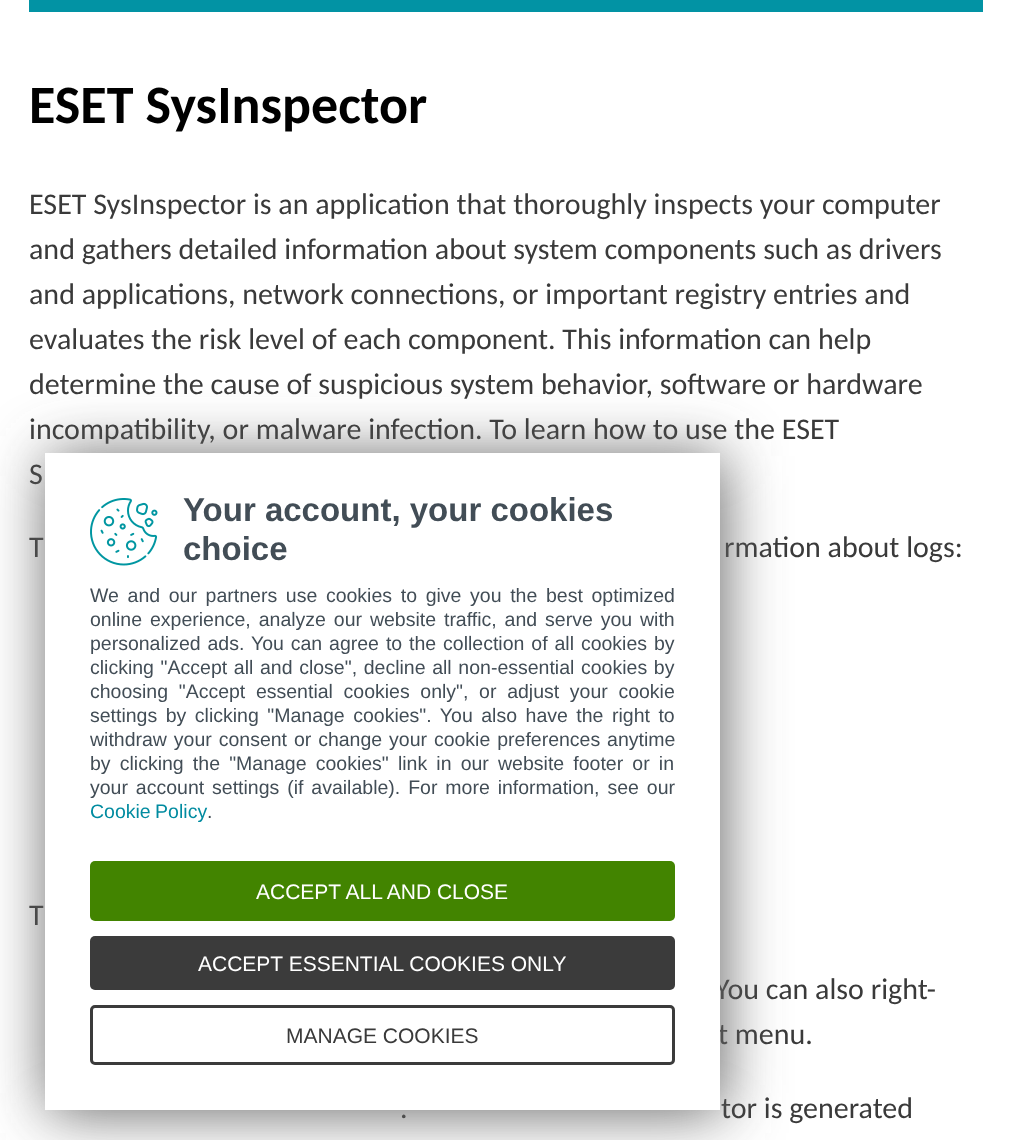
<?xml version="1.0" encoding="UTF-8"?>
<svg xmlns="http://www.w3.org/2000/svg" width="1011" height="1140">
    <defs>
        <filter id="blur1" x="-50%" y="-200%" width="200%" height="500%"><feGaussianBlur stdDeviation="30"/></filter>
    </defs>
    <rect width="100%" height="100%" fill="#FFFFFF"/>
    <rect x="29" y="0" width="954" height="12" fill="#0293A4"/>
    <text x="29" y="123" font-family="Carlito" font-size="54" font-weight="700" fill="#000000">ESET SysInspector</text>
    <text font-family="Carlito" font-size="30" fill="#3A3A3A">
        <tspan x="29" y="214">ESET SysInspector is an application that thoroughly inspects your computer</tspan>
        <tspan x="29" y="259">and gathers detailed information about system components such as drivers</tspan>
        <tspan x="29" y="304">and applications, network connections, or important registry entries and</tspan>
        <tspan x="29" y="349">evaluates the risk level of each component. This information can help</tspan>
        <tspan x="29" y="394">determine the cause of suspicious system behavior, software or hardware</tspan>
        <tspan x="29" y="439">incompatibility, or malware infection. To learn how to use the ESET</tspan>
        <tspan x="29" y="484">S</tspan>
    </text>
    <text x="29" y="557" font-family="Carlito" font-size="30" fill="#3A3A3A">T</text>
    <text x="724" y="557" font-family="Carlito" font-size="30" fill="#3A3A3A">rmation about logs:</text>
    <text x="29" y="925" font-family="Carlito" font-size="30" fill="#3A3A3A">T</text>
    <text x="715" y="999" font-family="Carlito" font-size="30" fill="#3A3A3A">You can also right-</text>
    <text x="718" y="1044" font-family="Carlito" font-size="30" fill="#3A3A3A">t menu.</text>
    <text x="400" y="1118" font-family="Carlito" font-size="30" fill="#3A3A3A">.</text>
    <text x="721" y="1118" font-family="Carlito" font-size="30" fill="#3A3A3A">tor is generated</text>
    <rect x="48" y="456" width="675" height="657" fill="#666666" filter="url(#blur1)"/>
    <rect x="45" y="453" width="675" height="657" fill="#FFFFFF"/>
    <text font-family="Liberation Sans" font-size="33" font-weight="700" fill="#424D56">
        <tspan x="183" y="521">Your account, your cookies</tspan>
        <tspan x="183" y="560">choice</tspan>
    </text>
    <text font-family="Liberation Sans" font-size="19.5" fill="#424D56">
        <tspan x="90" y="602" word-spacing="3.25">We and our partners use cookies to give you the best optimized</tspan>
        <tspan x="90" y="626" word-spacing="2.5">online experience, analyze our website traffic, and serve you with</tspan>
        <tspan x="90" y="650" word-spacing="1.5">personalized ads. You can agree to the collection of all cookies by</tspan>
        <tspan x="90" y="674" word-spacing="1.25">clicking "Accept all and close", decline all non-essential cookies by</tspan>
        <tspan x="90" y="698" word-spacing="5.25">choosing "Accept essential cookies only", or adjust your cookie</tspan>
        <tspan x="90" y="722" word-spacing="3.1">settings by clicking "Manage cookies". You also have the right to</tspan>
        <tspan x="90" y="746" word-spacing="1.5">withdraw your consent or change your cookie preferences anytime</tspan>
        <tspan x="90" y="770" word-spacing="3.75">by clicking the "Manage cookies" link in our website footer or in</tspan>
        <tspan x="90" y="794" word-spacing="2.5">your account settings (if available). For more information, see our</tspan>
    </text>
    <text x="90" y="818" word-spacing="-1" font-family="Liberation Sans" font-size="19.5" fill="#008BA0">Cookie Policy</text>
    <text x="207" y="818" font-family="Liberation Sans" font-size="19.5" fill="#424D56">.</text>
    <image x="90" y="498" width="68" height="68" href="img_01.png"/>
    <rect x="90" y="861" width="585" height="60" rx="5" fill="#428400"/>
    <text x="256" y="899" font-family="Liberation Sans" font-size="21" fill="#FFFFFF">ACCEPT ALL AND CLOSE</text>
    <rect x="90" y="936" width="585" height="54" rx="5" fill="#3B3B3B"/>
    <text x="198" y="971" font-family="Liberation Sans" font-size="21" fill="#FFFFFF">ACCEPT ESSENTIAL COOKIES ONLY</text>
    <rect x="91.5" y="1006.5" width="582" height="57" rx="3.5" fill="none" stroke="#3B3B3B" stroke-width="3"/>
    <text x="286" y="1043" font-family="Liberation Sans" font-size="21" fill="#3A3A3A">MANAGE COOKIES</text>
</svg>
